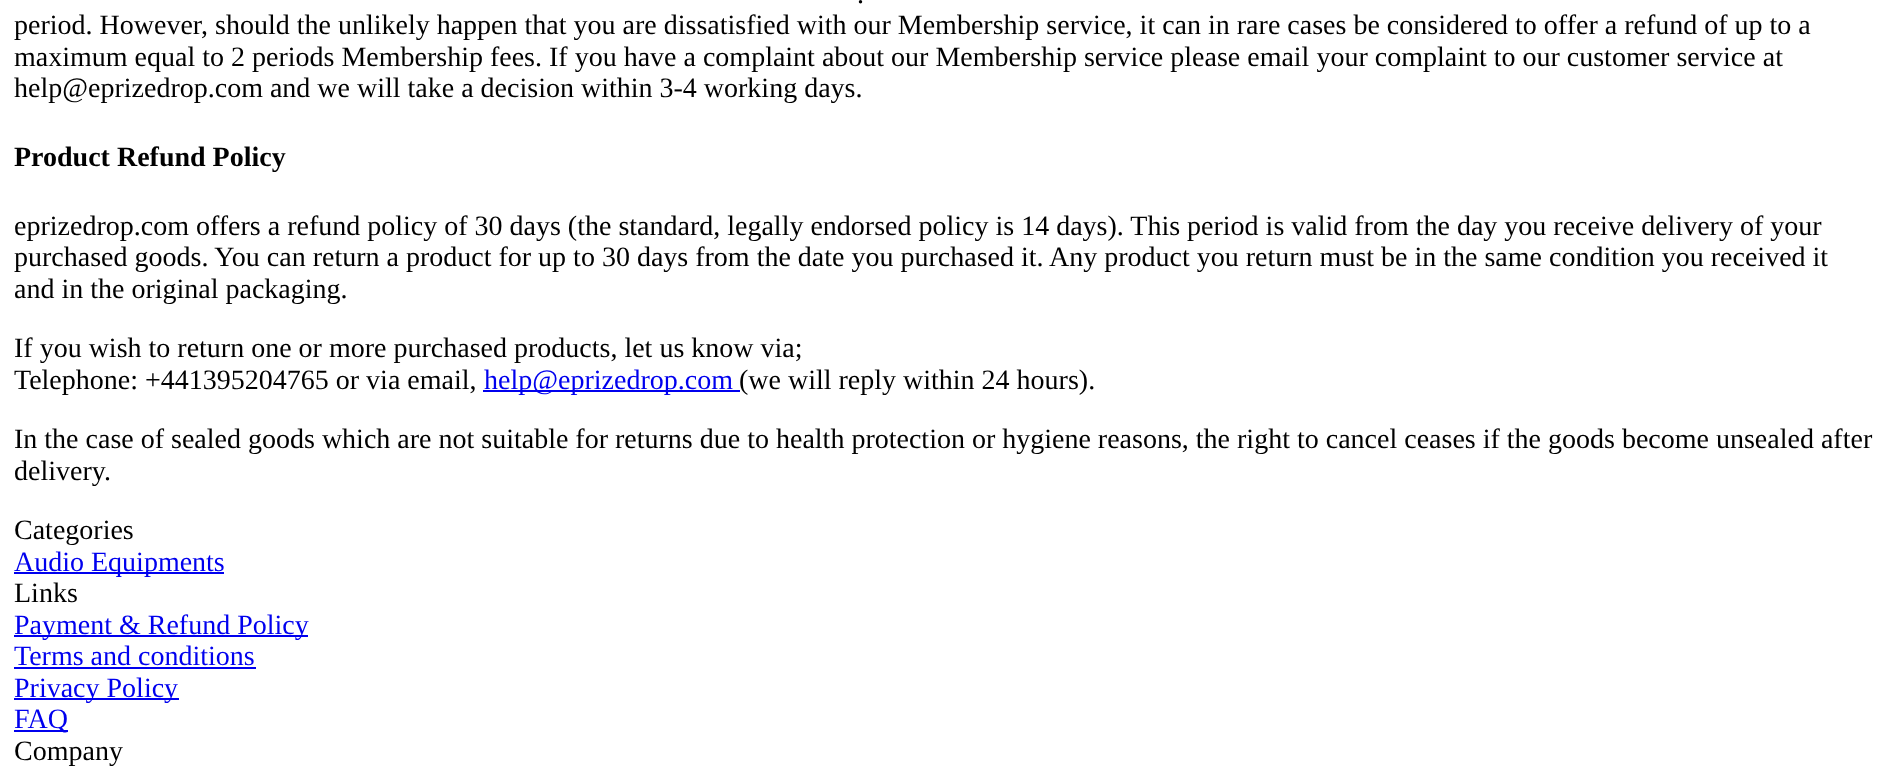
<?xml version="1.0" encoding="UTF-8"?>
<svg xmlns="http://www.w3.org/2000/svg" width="1886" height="780">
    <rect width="100%" height="100%" fill="#FFFFFF"/>
    <text x="857" y="3" font-family="Liberation Serif" font-size="28" fill="#000000">.</text>
    <text font-family="Liberation Serif" font-size="28" fill="#000000">
        <tspan x="14" y="34">period. However, should the unlikely happen that you are dissatisfied with our Membership service, it can in rare cases be considered to offer a refund of up to a</tspan>
        <tspan x="14" y="66">maximum equal to 2 periods Membership fees. If you have a complaint about our Membership service please email your complaint to our customer service at</tspan>
        <tspan x="14" y="97">help@eprizedrop.com and we will take a decision within 3-4 working days.</tspan>
    </text>
    <text x="14" y="166" font-family="Liberation Serif" font-size="28" font-weight="700" fill="#000000">Product Refund Policy</text>
    <text font-family="Liberation Serif" font-size="28" fill="#000000">
        <tspan x="14" y="235">eprizedrop.com offers a refund policy of 30 days (the standard, legally endorsed policy is 14 days). This period is valid from the day you receive delivery of your</tspan>
        <tspan x="14" y="266">purchased goods. You can return a product for up to 30 days from the date you purchased it. Any product you return must be in the same condition you received it</tspan>
        <tspan x="14" y="298">and in the original packaging.</tspan>
    </text>
    <text font-family="Liberation Serif" font-size="28" fill="#000000">
        <tspan x="14" y="357">If you wish to return one or more purchased products, let us know via;</tspan>
        <tspan x="14" y="389">Telephone: +441395204765 or via email,</tspan>
    </text>
    <rect x="483" y="390" width="257" height="2" fill="#0000EE"/>
    <text x="484" y="389" font-family="Liberation Serif" font-size="28" fill="#0000EE">help@eprizedrop.com</text>
    <text x="739" y="389" font-family="Liberation Serif" font-size="28" fill="#000000">(we will reply within 24 hours).</text>
    <text font-family="Liberation Serif" font-size="28" fill="#000000">
        <tspan x="14" y="448">In the case of sealed goods which are not suitable for returns due to health protection or hygiene reasons, the right to cancel ceases if the goods become unsealed after</tspan>
        <tspan x="14" y="480">delivery.</tspan>
    </text>
    <text x="14" y="539" font-family="Liberation Serif" font-size="28" fill="#000000">Categories</text>
    <rect x="14" y="572" width="210" height="2" fill="#0000EE"/>
    <text x="14" y="571" font-family="Liberation Serif" font-size="28" fill="#0000EE">Audio Equipments</text>
    <text x="14" y="602" font-family="Liberation Serif" font-size="28" fill="#000000">Links</text>
    <rect x="14" y="635" width="294" height="2" fill="#0000EE"/>
    <text font-family="Liberation Serif" font-size="28" fill="#0000EE">
        <tspan x="14" y="634">Payment &amp; Refund Policy</tspan>
        <tspan x="14" y="665">Terms and conditions</tspan>
    </text>
    <rect x="14" y="667" width="242" height="2" fill="#0000EE"/>
    <rect x="14" y="698" width="165" height="2" fill="#0000EE"/>
    <text x="14" y="697" font-family="Liberation Serif" font-size="28" fill="#0000EE">Privacy Policy</text>
    <rect x="14" y="730" width="54" height="2" fill="#0000EE"/>
    <text x="14" y="728" font-family="Liberation Serif" font-size="28" fill="#0000EE">FAQ</text>
    <text x="14" y="760" font-family="Liberation Serif" font-size="28" fill="#000000">Company</text>
</svg>
